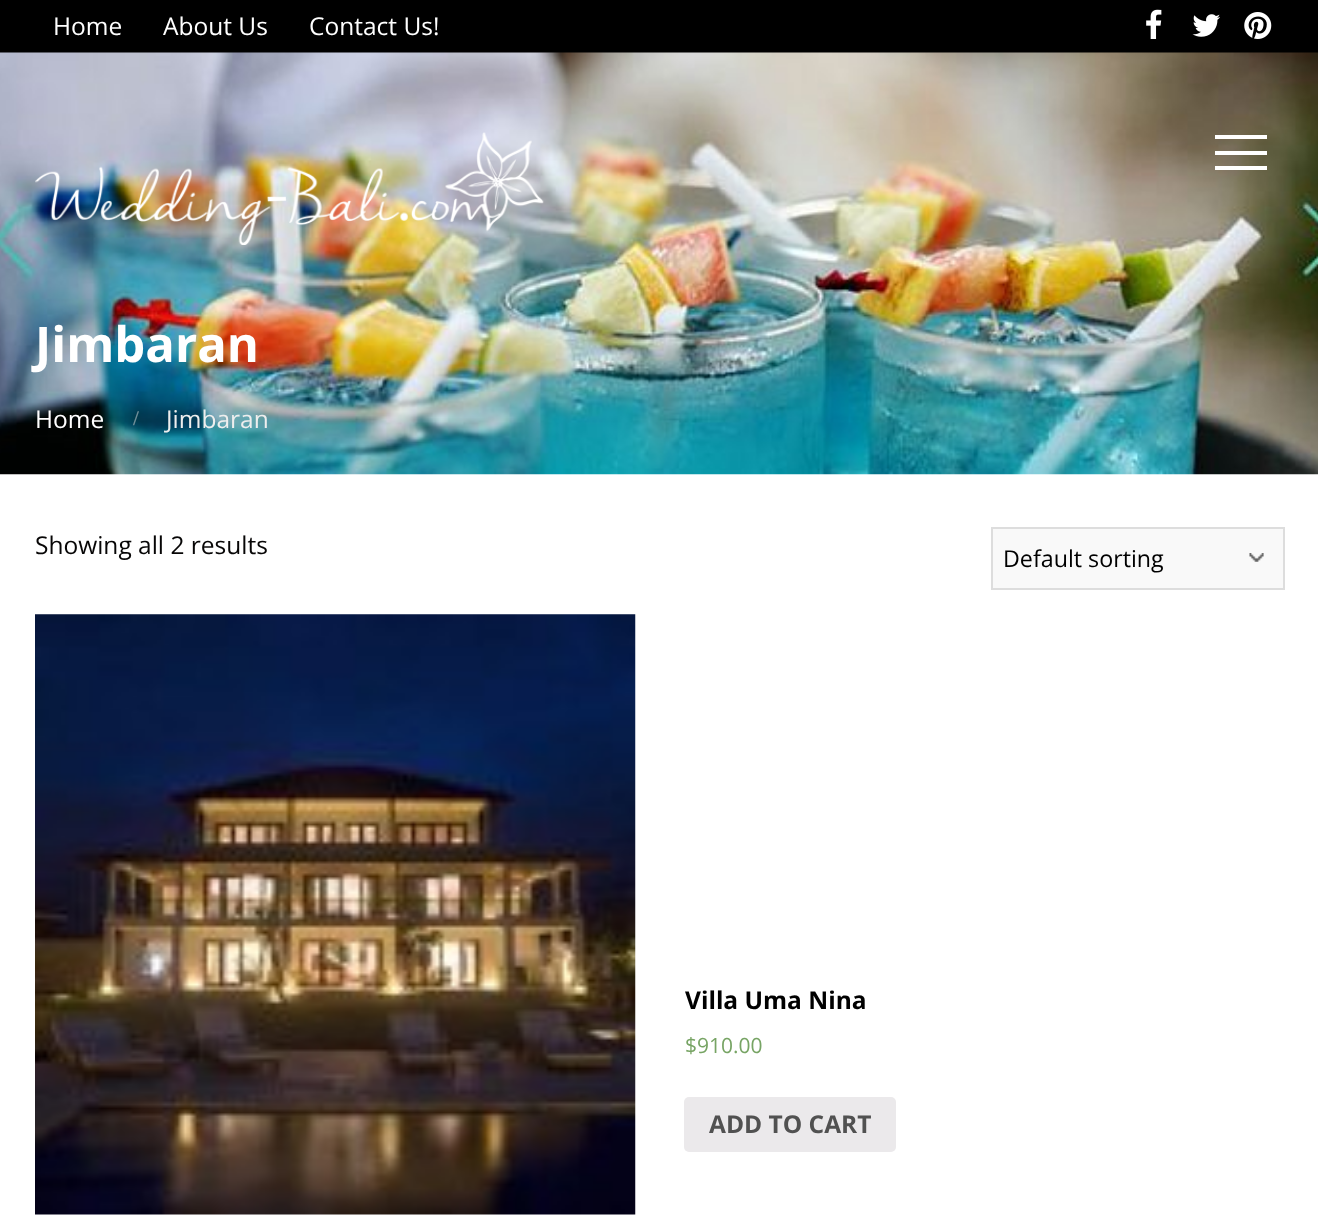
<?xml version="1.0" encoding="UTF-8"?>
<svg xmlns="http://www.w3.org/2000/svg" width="1318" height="1227">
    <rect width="100%" height="100%" fill="#FFFFFF"/>
    <rect x="0" y="0" width="1318" height="53" fill="#000000"/>
    <text x="53" y="35" font-family="Open Sans" font-size="24.5" fill="#FFFFFF">Home</text>
    <text x="163" y="35" font-family="Open Sans" font-size="24.5" fill="#FFFFFF">About Us</text>
    <text x="309" y="35" font-family="Open Sans" font-size="24.5" fill="#FFFFFF">Contact Us!</text>
    <image x="1146" y="9" width="16" height="30" href="img_01.png"/>
    <image x="1192" y="14" width="28" height="23" href="img_02.png"/>
    <image x="1244" y="12" width="28" height="27" href="img_03.png"/>
    <image x="0" y="52" width="1318" height="423" href="img_05.png"/>
    <image x="35" y="132" width="509" height="113" href="img_04.png"/>
    <rect x="1215" y="135" width="52" height="4" fill="#FFFFFF"/>
    <rect x="1215" y="166" width="52" height="4" fill="#FFFFFF"/>
    <rect x="1215" y="151" width="52" height="4" fill="#FFFFFF"/>
    <text x="35" y="362" font-family="Open Sans" font-size="49" font-weight="700" fill="#FFFFFF">Jimbaran</text>
    <text x="35" y="428" font-family="Open Sans" font-size="24.5" fill="#FFFFFF">Home</text>
    <text x="133" y="425" font-family="Liberation Serif" font-size="21" font-weight="700" fill="#6F8E98">/</text>
    <text x="166" y="428" font-family="Open Sans" font-size="24.5" fill="#EEEEEE">Jimbaran</text>
    <text x="35" y="554" font-family="Open Sans" font-size="24.5" fill="#070606">Showing all 2 results</text>
    <rect x="993" y="529" width="290" height="59" fill="#F9F9F9"/>
    <image x="1249" y="553" width="15" height="9" href="img_06.png"/>
    <rect x="992" y="528" width="292" height="61" fill="none" stroke="#DDDDDD" stroke-width="2"/>
    <text x="1003" y="567" font-family="Open Sans" font-size="23.25" fill="#000000">Default sorting</text>
    <image x="35" y="614" width="601" height="601" href="img_07.png"/>
    <text x="685" y="1009" font-family="Open Sans" font-size="24.5" font-weight="700" fill="#000000">Villa Uma Nina</text>
    <text x="685" y="1053" font-family="Open Sans" font-size="21" fill="#77A464">$910.00</text>
    <rect x="684" y="1097" width="212" height="55" rx="5" fill="#EBE9EB"/>
    <text x="709" y="1133" font-family="Open Sans" font-size="24.5" font-weight="700" fill="#515151">ADD TO CART</text>
</svg>
